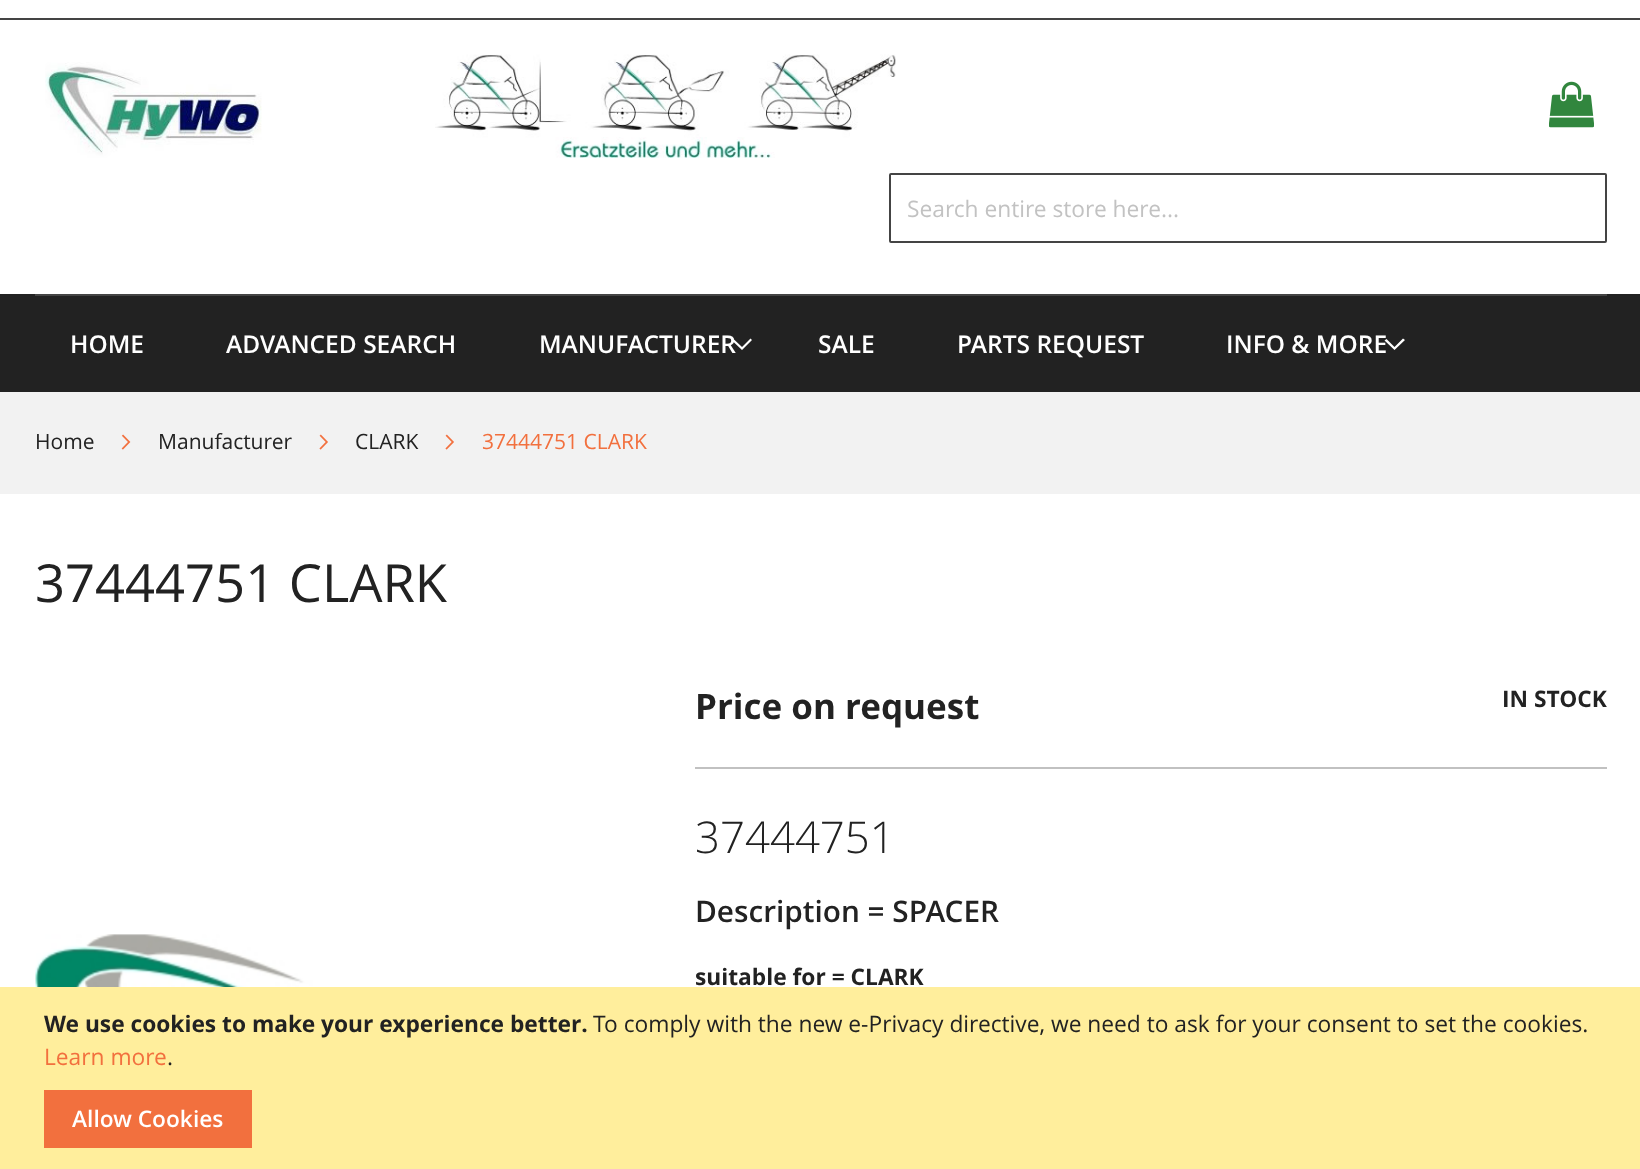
<?xml version="1.0" encoding="UTF-8"?>
<svg xmlns="http://www.w3.org/2000/svg" width="1640" height="1169">
    <rect width="100%" height="100%" fill="#FFFFFF"/>
    <rect x="0" y="18" width="1640" height="2" fill="#444444"/>
    <image x="45" y="54" width="851" height="104" href="img_01.png"/>
    <image x="1549" y="81" width="45" height="47" href="img_02.png"/>
    <rect x="890" y="174" width="716" height="68" rx="1" fill="none" stroke="#444444" stroke-width="2"/>
    <text x="907" y="217" font-family="Open Sans" font-size="22.75" fill="#C2C2C2">Search entire store here...</text>
    <rect x="0" y="294" width="1640" height="98" fill="#222222"/>
    <rect x="35" y="294" width="1572" height="2" fill="#444444"/>
    <text x="70" y="353" font-family="Open Sans" font-size="24.5" font-weight="600" fill="#FFFFFF">HOME</text>
    <text x="226" y="353" font-family="Open Sans" font-size="24.5" font-weight="600" fill="#FFFFFF">ADVANCED SEARCH</text>
    <text x="539" y="353" font-family="Open Sans" font-size="24.5" font-weight="600" fill="#FFFFFF">MANUFACTURER</text>
    <path d="M 742 347 L 733.5 339 L 732 340.5 L 742 350 L 752 340 L 750.5 338.5 Z" fill="#FFFFFF"/>
    <text x="818" y="353" font-family="Open Sans" font-size="24.5" font-weight="600" fill="#FFFFFF">SALE</text>
    <text x="957" y="353" font-family="Open Sans" font-size="24.5" font-weight="600" fill="#FFFFFF">PARTS REQUEST</text>
    <text x="1226" y="353" font-family="Open Sans" font-size="24.5" font-weight="600" fill="#FFFFFF">INFO &amp; MORE</text>
    <path d="M 1394.5 347 L 1386.5 339 L 1384.5 340.5 L 1394.5 350 L 1405 340 L 1403 338.5 Z" fill="#FFFFFF"/>
    <rect x="0" y="392" width="1640" height="102" fill="#F2F2F2"/>
    <text x="35" y="449" font-family="Open Sans" font-size="21" fill="#222222">Home</text>
    <image x="121" y="434" width="10" height="16" href="img_03.png"/>
    <text x="158" y="449" font-family="Open Sans" font-size="21" fill="#222222">Manufacturer</text>
    <image x="319" y="434" width="9" height="16" href="img_04.png"/>
    <text x="355" y="449" font-family="Open Sans" font-size="21" fill="#222222">CLARK</text>
    <image x="445" y="434" width="9" height="16" href="img_04.png"/>
    <text x="482" y="449" font-family="Open Sans" font-size="21" fill="#F2703E">37444751 CLARK</text>
    <text x="35" y="602" font-family="Open Sans" font-size="52.5" fill="#222222">37444751 CLARK</text>
    <image x="35" y="934" width="608" height="53" href="img_05.png"/>
    <rect x="695" y="767" width="912" height="2" fill="#C1C1C1"/>
    <text x="695" y="719" font-family="Open Sans" font-size="35" font-weight="700" fill="#222222">Price on request</text>
    <text x="1502" y="707" font-family="Open Sans" font-size="22.75" font-weight="700" fill="#222222">IN STOCK</text>
    <text x="695" y="853" font-family="Open Sans" font-size="43.75" font-weight="300" fill="#222222">37444751</text>
    <text x="695" y="922" font-family="Open Sans" font-size="29.75" font-weight="600" fill="#222222">Description = SPACER</text>
    <text x="695" y="985" font-family="Open Sans" font-size="22.75" font-weight="700" fill="#222222">suitable for = CLARK</text>
    <rect x="0" y="987" width="1640" height="182" fill="#FFEE9C"/>
    <text x="44" y="1032" font-family="Open Sans" font-size="22.75" font-weight="700" fill="#222222">We use cookies to make your experience better.</text>
    <text x="593" y="1032" font-family="Open Sans" font-size="22.75" fill="#222222">To comply with the new e-Privacy directive, we need to ask for your consent to set the cookies.</text>
    <text x="44" y="1065" font-family="Open Sans" font-size="22.75" fill="#F2703E">Learn more</text>
    <text x="167" y="1065" font-family="Open Sans" font-size="22.75" fill="#222222">.</text>
    <rect x="44" y="1090" width="208" height="58" fill="#F2703E"/>
    <text x="72" y="1127" font-family="Open Sans" font-size="22.75" font-weight="600" fill="#FFFFFF">Allow Cookies</text>
</svg>
